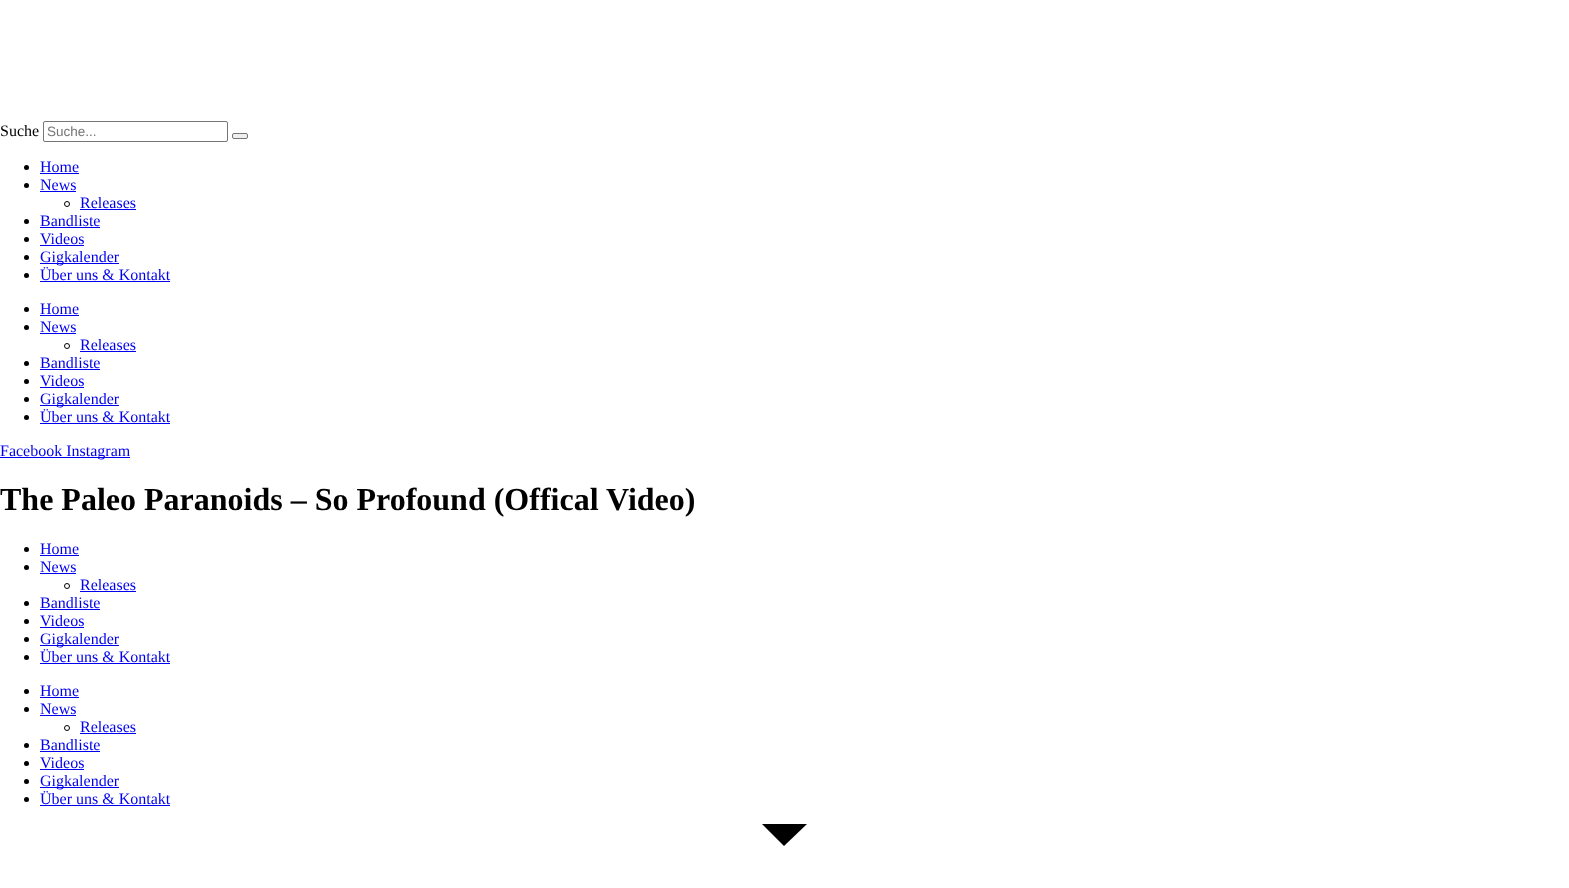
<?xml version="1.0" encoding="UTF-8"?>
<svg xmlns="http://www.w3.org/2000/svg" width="1569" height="888">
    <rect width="100%" height="100%" fill="#FFFFFF"/>
    <text x="0" y="136" font-family="Liberation Serif" font-size="16" fill="#000000">Suche</text>
    <rect x="43.5" y="121.5" width="184" height="20" rx="1.5" fill="none" stroke="#767676"/>
    <text x="47" y="136" font-family="Liberation Sans" font-size="13.5" fill="#757575">Suche...</text>
    <rect x="232.5" y="133.5" width="15" height="5" rx="1.5" fill="#EFEFEF" stroke="#767676"/>
    <circle cx="26.5" cy="167.5" r="2.5" fill="#000000"/>
    <text x="40" y="172" font-family="Liberation Serif" font-size="16" fill="#0000EE">Home</text>
    <rect x="40" y="173" width="39" height="1" fill="#0000EE"/>
    <circle cx="26.5" cy="185.5" r="2.5" fill="#000000"/>
    <text x="40" y="190" font-family="Liberation Serif" font-size="16" fill="#0000EE">News</text>
    <rect x="40" y="191" width="36" height="1" fill="#0000EE"/>
    <circle cx="67" cy="204" r="2.5" fill="none" stroke="#000000"/>
    <text x="80" y="208" font-family="Liberation Serif" font-size="16" fill="#0000EE">Releases</text>
    <rect x="80" y="209" width="56" height="1" fill="#0000EE"/>
    <circle cx="26.5" cy="221.5" r="2.5" fill="#000000"/>
    <text x="40" y="226" font-family="Liberation Serif" font-size="16" fill="#0000EE">Bandliste</text>
    <rect x="40" y="227" width="60" height="1" fill="#0000EE"/>
    <circle cx="26.5" cy="239.5" r="2.5" fill="#000000"/>
    <text x="40" y="244" font-family="Liberation Serif" font-size="16" fill="#0000EE">Videos</text>
    <rect x="40" y="245" width="44" height="1" fill="#0000EE"/>
    <circle cx="26.5" cy="257.5" r="2.5" fill="#000000"/>
    <rect x="40" y="263" width="79" height="1" fill="#0000EE"/>
    <text x="40" y="262" font-family="Liberation Serif" font-size="16" fill="#0000EE">Gigkalender</text>
    <circle cx="26.5" cy="275.5" r="2.5" fill="#000000"/>
    <text x="40" y="280" font-family="Liberation Serif" font-size="16" fill="#0000EE">Über uns &amp; Kontakt</text>
    <rect x="40" y="281" width="130" height="1" fill="#0000EE"/>
    <circle cx="26.5" cy="309.5" r="2.5" fill="#000000"/>
    <text x="40" y="314" font-family="Liberation Serif" font-size="16" fill="#0000EE">Home</text>
    <rect x="40" y="315" width="39" height="1" fill="#0000EE"/>
    <circle cx="26.5" cy="327.5" r="2.5" fill="#000000"/>
    <text x="40" y="332" font-family="Liberation Serif" font-size="16" fill="#0000EE">News</text>
    <rect x="40" y="333" width="36" height="1" fill="#0000EE"/>
    <circle cx="67" cy="346" r="2.5" fill="none" stroke="#000000"/>
    <text x="80" y="350" font-family="Liberation Serif" font-size="16" fill="#0000EE">Releases</text>
    <rect x="80" y="351" width="56" height="1" fill="#0000EE"/>
    <circle cx="26.5" cy="363.5" r="2.5" fill="#000000"/>
    <text x="40" y="368" font-family="Liberation Serif" font-size="16" fill="#0000EE">Bandliste</text>
    <rect x="40" y="369" width="60" height="1" fill="#0000EE"/>
    <circle cx="26.5" cy="381.5" r="2.5" fill="#000000"/>
    <text x="40" y="386" font-family="Liberation Serif" font-size="16" fill="#0000EE">Videos</text>
    <rect x="40" y="387" width="44" height="1" fill="#0000EE"/>
    <circle cx="26.5" cy="399.5" r="2.5" fill="#000000"/>
    <rect x="40" y="405" width="79" height="1" fill="#0000EE"/>
    <text x="40" y="404" font-family="Liberation Serif" font-size="16" fill="#0000EE">Gigkalender</text>
    <circle cx="26.5" cy="417.5" r="2.5" fill="#000000"/>
    <text x="40" y="422" font-family="Liberation Serif" font-size="16" fill="#0000EE">Über uns &amp; Kontakt</text>
    <rect x="40" y="423" width="130" height="1" fill="#0000EE"/>
    <rect x="0" y="457" width="130" height="1" fill="#0000EE"/>
    <text x="0" y="456" font-family="Liberation Serif" font-size="16" fill="#0000EE">Facebook Instagram</text>
    <text x="0" y="510" font-family="Liberation Serif" font-size="32" font-weight="700" fill="#000000">The Paleo Paranoids – So Profound (Offical Video)</text>
    <circle cx="26.5" cy="549.5" r="2.5" fill="#000000"/>
    <text x="40" y="554" font-family="Liberation Serif" font-size="16" fill="#0000EE">Home</text>
    <rect x="40" y="555" width="39" height="1" fill="#0000EE"/>
    <circle cx="26.5" cy="567.5" r="2.5" fill="#000000"/>
    <text x="40" y="572" font-family="Liberation Serif" font-size="16" fill="#0000EE">News</text>
    <rect x="40" y="573" width="36" height="1" fill="#0000EE"/>
    <circle cx="67" cy="586" r="2.5" fill="none" stroke="#000000"/>
    <text x="80" y="590" font-family="Liberation Serif" font-size="16" fill="#0000EE">Releases</text>
    <rect x="80" y="591" width="56" height="1" fill="#0000EE"/>
    <circle cx="26.5" cy="603.5" r="2.5" fill="#000000"/>
    <text x="40" y="608" font-family="Liberation Serif" font-size="16" fill="#0000EE">Bandliste</text>
    <rect x="40" y="609" width="60" height="1" fill="#0000EE"/>
    <circle cx="26.5" cy="621.5" r="2.5" fill="#000000"/>
    <text x="40" y="626" font-family="Liberation Serif" font-size="16" fill="#0000EE">Videos</text>
    <rect x="40" y="627" width="44" height="1" fill="#0000EE"/>
    <circle cx="26.5" cy="639.5" r="2.5" fill="#000000"/>
    <rect x="40" y="645" width="79" height="1" fill="#0000EE"/>
    <text x="40" y="644" font-family="Liberation Serif" font-size="16" fill="#0000EE">Gigkalender</text>
    <circle cx="26.5" cy="657.5" r="2.5" fill="#000000"/>
    <text x="40" y="662" font-family="Liberation Serif" font-size="16" fill="#0000EE">Über uns &amp; Kontakt</text>
    <rect x="40" y="663" width="130" height="1" fill="#0000EE"/>
    <circle cx="26.5" cy="691.5" r="2.5" fill="#000000"/>
    <text x="40" y="696" font-family="Liberation Serif" font-size="16" fill="#0000EE">Home</text>
    <rect x="40" y="697" width="39" height="1" fill="#0000EE"/>
    <circle cx="26.5" cy="709.5" r="2.5" fill="#000000"/>
    <text x="40" y="714" font-family="Liberation Serif" font-size="16" fill="#0000EE">News</text>
    <rect x="40" y="715" width="36" height="1" fill="#0000EE"/>
    <circle cx="67" cy="728" r="2.5" fill="none" stroke="#000000"/>
    <text x="80" y="732" font-family="Liberation Serif" font-size="16" fill="#0000EE">Releases</text>
    <rect x="80" y="733" width="56" height="1" fill="#0000EE"/>
    <circle cx="26.5" cy="745.5" r="2.5" fill="#000000"/>
    <text x="40" y="750" font-family="Liberation Serif" font-size="16" fill="#0000EE">Bandliste</text>
    <rect x="40" y="751" width="60" height="1" fill="#0000EE"/>
    <circle cx="26.5" cy="763.5" r="2.5" fill="#000000"/>
    <text x="40" y="768" font-family="Liberation Serif" font-size="16" fill="#0000EE">Videos</text>
    <rect x="40" y="769" width="44" height="1" fill="#0000EE"/>
    <circle cx="26.5" cy="781.5" r="2.5" fill="#000000"/>
    <rect x="40" y="787" width="79" height="1" fill="#0000EE"/>
    <text x="40" y="786" font-family="Liberation Serif" font-size="16" fill="#0000EE">Gigkalender</text>
    <circle cx="26.5" cy="799.5" r="2.5" fill="#000000"/>
    <text x="40" y="804" font-family="Liberation Serif" font-size="16" fill="#0000EE">Über uns &amp; Kontakt</text>
    <rect x="40" y="805" width="130" height="1" fill="#0000EE"/>
    <path d="M 784 846 L 762 824 H 807 Z" fill="#000000"/>
</svg>
